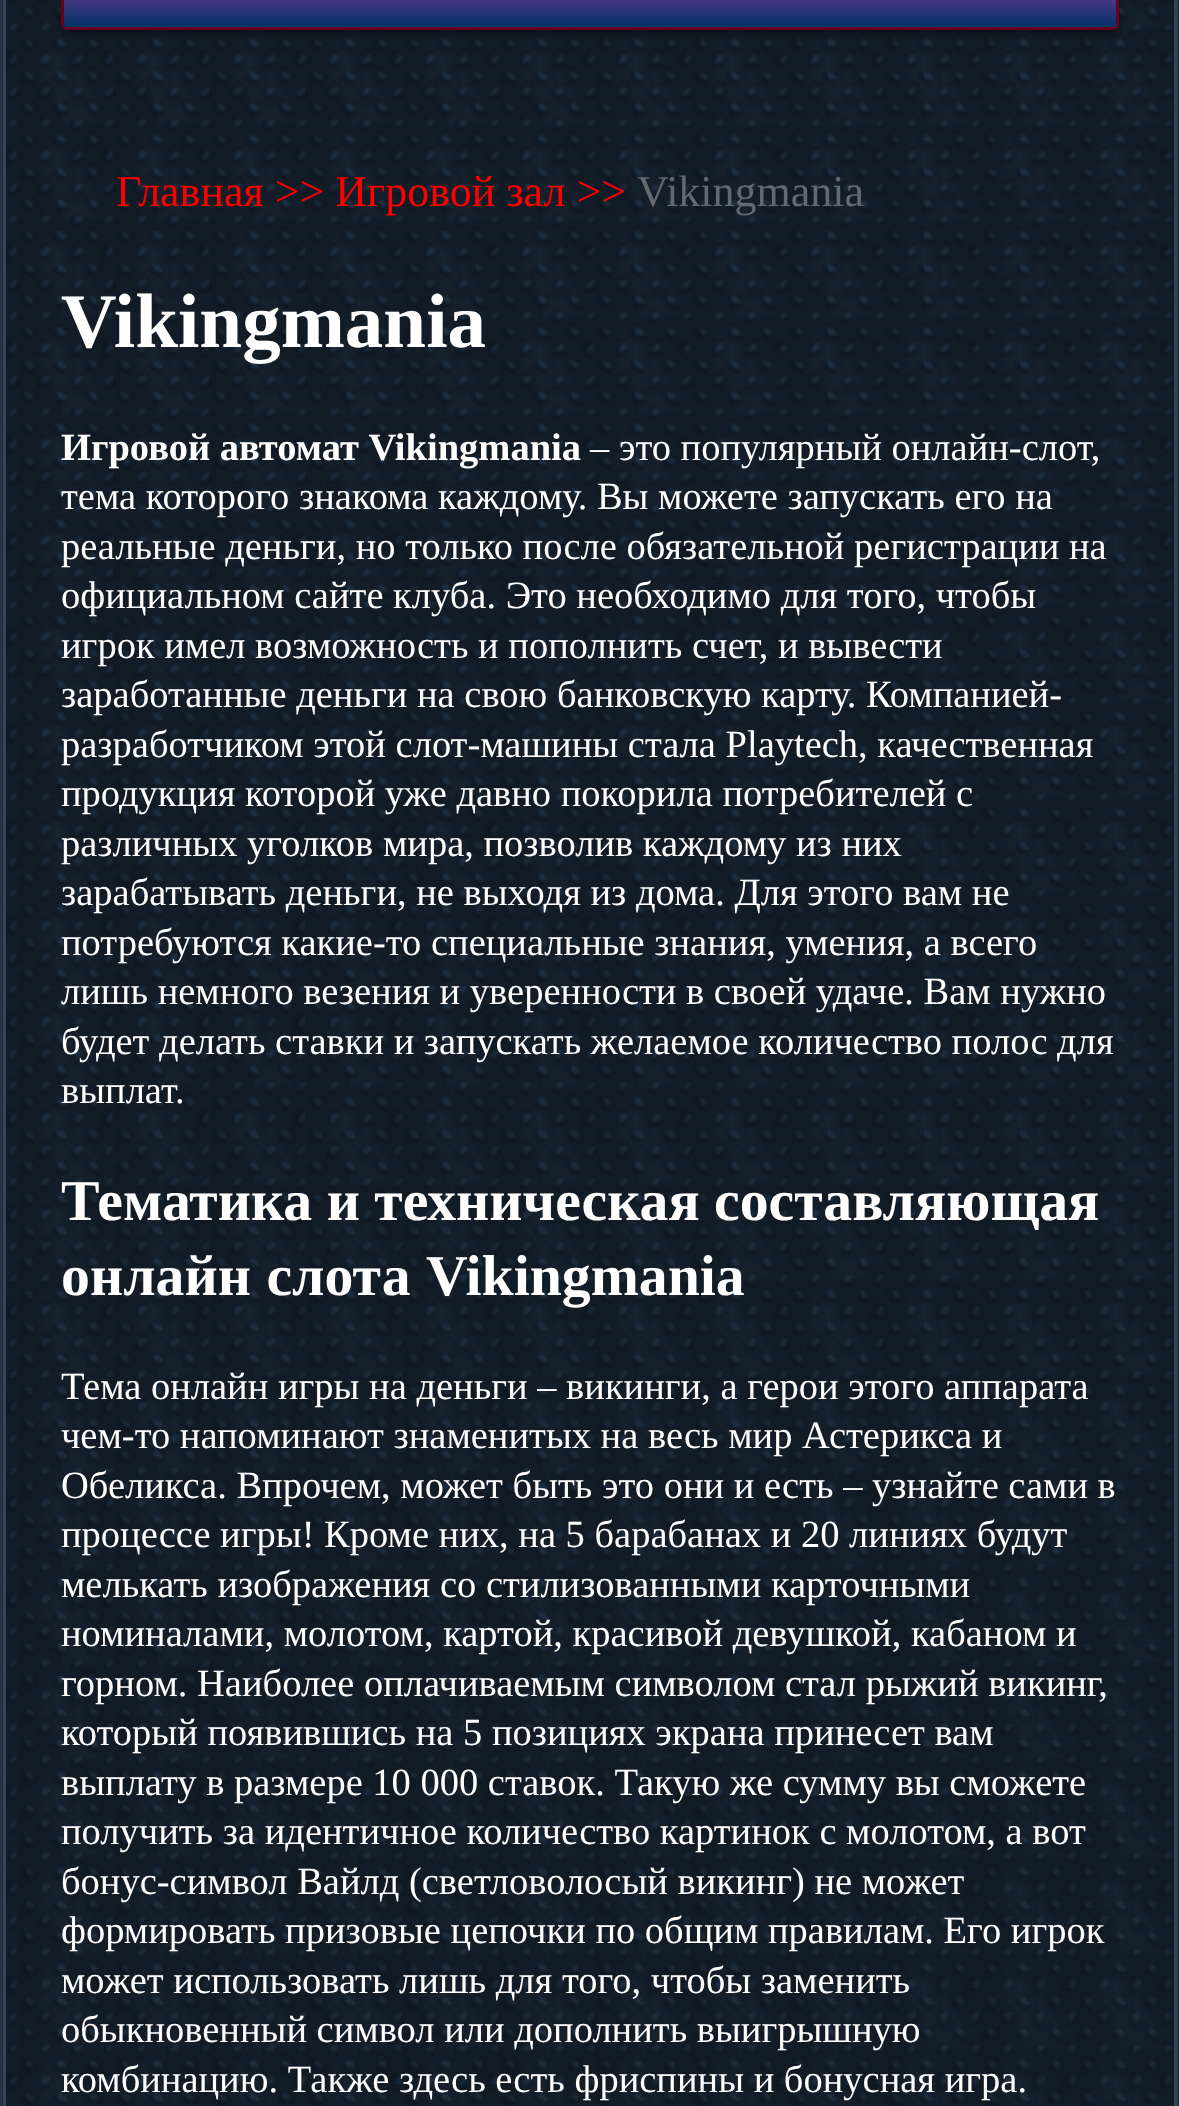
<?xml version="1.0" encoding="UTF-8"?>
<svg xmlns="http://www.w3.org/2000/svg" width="1179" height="2106">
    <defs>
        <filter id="blur1" x="-50%" y="-200%" width="200%" height="500%"><feGaussianBlur stdDeviation="4"/></filter>
        <clipPath id="clip1"><rect x="61" y="-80" width="1058" height="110" rx="6"/></clipPath>
        <linearGradient id="g1" gradientUnits="userSpaceOnUse" x1="63" y1="-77" x2="63" y2="28"><stop offset="0" stop-color="#FF42CD"/><stop offset="1" stop-color="#003366"/></linearGradient>
    </defs>
    <rect width="100%" height="100%" fill="#FFFFFF"/>
    <rect x="1.5" y="-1.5" width="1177" height="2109" fill="none" stroke="#28323A" stroke-width="3"/>
    <image x="2" y="0" width="1172" height="2106" href="img_01.png"/>
    <rect x="4.5" y="-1.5" width="1171" height="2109" fill="none" stroke="#34435B" stroke-width="3"/>
    <rect x="61" y="-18" width="1058" height="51" rx="6" fill="#000000" fill-opacity="0.5" filter="url(#blur1)"/>
    <g clip-path="url(#clip1)">
        <rect x="61" y="0" width="1058" height="28" fill="url(#g1)"/>
    </g>
    <rect x="62.5" y="-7.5" width="1055" height="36" rx="4.5" fill="none" stroke="#660022" stroke-width="3"/>
    <text x="116" y="206" font-family="Liberation Serif" font-size="44" fill="#FF0000">Главная &gt;&gt; Игровой зал &gt;&gt;</text>
    <text x="637" y="206" font-family="Liberation Serif" font-size="44" fill="#626970">Vikingmania</text>
    <text x="61" y="347" font-family="Liberation Serif" font-size="77" font-weight="700" fill="#FFFFFF">Vikingmania</text>
    <text x="61" y="460" font-family="Liberation Serif" font-size="38.5" font-weight="700" fill="#FFFFFF">Игровой автомат Vikingmania</text>
    <text x="590" y="460" font-family="Liberation Serif" font-size="38.5" fill="#FFFFFF">– это популярный онлайн-слот,</text>
    <text font-family="Liberation Serif" font-size="38.5" fill="#FFFFFF">
        <tspan x="61" y="509">тема которого знакома каждому. Вы можете запускать его на</tspan>
        <tspan x="61" y="559">реальные деньги, но только после обязательной регистрации на</tspan>
        <tspan x="61" y="608">официальном сайте клуба. Это необходимо для того, чтобы</tspan>
        <tspan x="61" y="658">игрок имел возможность и пополнить счет, и вывести</tspan>
        <tspan x="61" y="707">заработанные деньги на свою банковскую карту. Компанией-</tspan>
        <tspan x="61" y="757">разработчиком этой слот-машины стала Playtech, качественная</tspan>
        <tspan x="61" y="806">продукция которой уже давно покорила потребителей с</tspan>
        <tspan x="61" y="856">различных уголков мира, позволив каждому из них</tspan>
        <tspan x="61" y="905">зарабатывать деньги, не выходя из дома. Для этого вам не</tspan>
        <tspan x="61" y="955">потребуются какие-то специальные знания, умения, а всего</tspan>
        <tspan x="61" y="1004">лишь немного везения и уверенности в своей удаче. Вам нужно</tspan>
        <tspan x="61" y="1054">будет делать ставки и запускать желаемое количество полос для</tspan>
        <tspan x="61" y="1103">выплат.</tspan>
    </text>
    <text font-family="Liberation Serif" font-size="57.75" font-weight="700" fill="#FFFFFF">
        <tspan x="61" y="1220">Тематика и техническая составляющая</tspan>
        <tspan x="61" y="1295" word-spacing="1">онлайн слота Vikingmania</tspan>
    </text>
    <text font-family="Liberation Serif" font-size="38.5" fill="#FFFFFF">
        <tspan x="61" y="1399">Тема онлайн игры на деньги – викинги, а герои этого аппарата</tspan>
        <tspan x="61" y="1448">чем-то напоминают знаменитых на весь мир Астерикса и</tspan>
        <tspan x="61" y="1498">Обеликса. Впрочем, может быть это они и есть – узнайте сами в</tspan>
        <tspan x="61" y="1547">процессе игры! Кроме них, на 5 барабанах и 20 линиях будут</tspan>
        <tspan x="61" y="1597">мелькать изображения со стилизованными карточными</tspan>
        <tspan x="61" y="1646">номиналами, молотом, картой, красивой девушкой, кабаном и</tspan>
        <tspan x="61" y="1696">горном. Наиболее оплачиваемым символом стал рыжий викинг,</tspan>
        <tspan x="61" y="1745">который появившись на 5 позициях экрана принесет вам</tspan>
        <tspan x="61" y="1795">выплату в размере 10 000 ставок. Такую же сумму вы сможете</tspan>
        <tspan x="61" y="1844">получить за идентичное количество картинок с молотом, а вот</tspan>
        <tspan x="61" y="1894">бонус-символ Вайлд (светловолосый викинг) не может</tspan>
        <tspan x="61" y="1943">формировать призовые цепочки по общим правилам. Его игрок</tspan>
        <tspan x="61" y="1993">может использовать лишь для того, чтобы заменить</tspan>
        <tspan x="61" y="2042">обыкновенный символ или дополнить выигрышную</tspan>
        <tspan x="61" y="2092">комбинацию. Также здесь есть фриспины и бонусная игра.</tspan>
    </text>
</svg>
